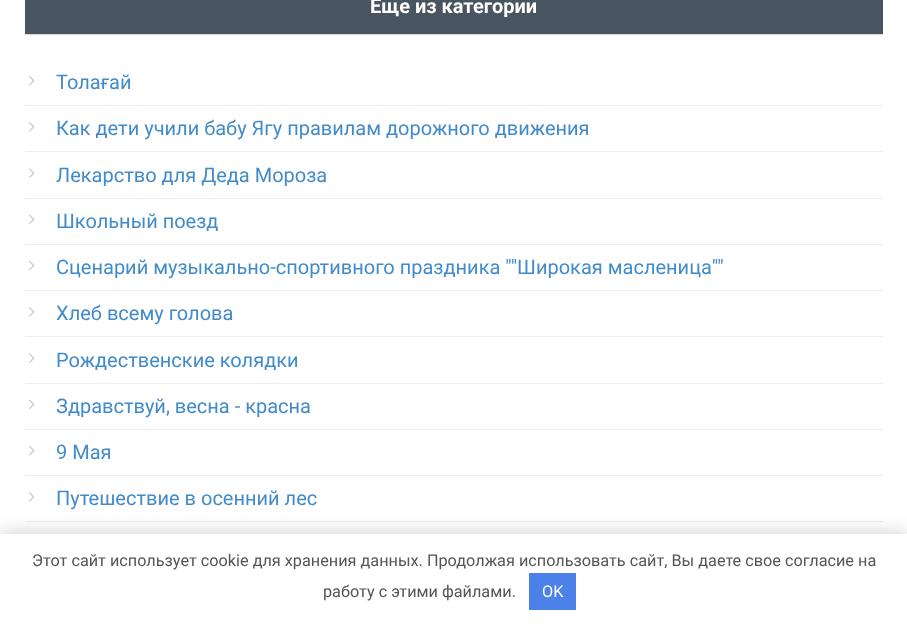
<?xml version="1.0" encoding="UTF-8"?>
<svg xmlns="http://www.w3.org/2000/svg" width="907" height="624">
    <defs>
        <filter id="blur1" x="-50%" y="-200%" width="200%" height="500%"><feGaussianBlur stdDeviation="9.5"/></filter>
    </defs>
    <rect width="100%" height="100%" fill="#FFFFFF"/>
    <rect x="25" y="0" width="858" height="34" fill="#485460"/>
    <rect x="25" y="34" width="858" height="1" fill="#DADADA"/>
    <text x="370" y="13" font-family="Roboto" font-size="20" font-weight="700" fill="#FFFFFF">Еще из категории</text>
    <rect x="25" y="105" width="858" height="1" fill="#EEEEEE"/>
    <image x="29" y="75" width="6" height="11" href="img_01.png"/>
    <text x="56" y="89" font-family="Roboto" font-size="20" fill="#428BCA">Толағай</text>
    <rect x="25" y="151" width="858" height="1" fill="#EEEEEE"/>
    <image x="29" y="122" width="6" height="10" href="img_02.png"/>
    <text x="56" y="135" font-family="Roboto" font-size="20" fill="#428BCA">Как дети учили бабу Ягу правилам дорожного движения</text>
    <rect x="25" y="198" width="858" height="1" fill="#EEEEEE"/>
    <image x="29" y="168" width="6" height="10" href="img_03.png"/>
    <text x="56" y="182" font-family="Roboto" font-size="20" fill="#428BCA">Лекарство для Деда Мороза</text>
    <rect x="25" y="244" width="858" height="1" fill="#EEEEEE"/>
    <image x="29" y="214" width="6" height="11" href="img_04.png"/>
    <text x="56" y="228" font-family="Roboto" font-size="20" fill="#428BCA">Школьный поезд</text>
    <rect x="25" y="290" width="858" height="1" fill="#EEEEEE"/>
    <image x="29" y="260" width="6" height="11" href="img_01.png"/>
    <text x="56" y="274" font-family="Roboto" font-size="20" fill="#428BCA">Сценарий музыкально-спортивного праздника ""Широкая масленица""</text>
    <rect x="25" y="336" width="858" height="1" fill="#EEEEEE"/>
    <image x="29" y="307" width="6" height="10" href="img_02.png"/>
    <text x="56" y="320" font-family="Roboto" font-size="20" fill="#428BCA">Хлеб всему голова</text>
    <rect x="25" y="383" width="858" height="1" fill="#EEEEEE"/>
    <image x="29" y="353" width="6" height="10" href="img_03.png"/>
    <text x="56" y="367" font-family="Roboto" font-size="20" fill="#428BCA">Рождественские колядки</text>
    <rect x="25" y="429" width="858" height="1" fill="#EEEEEE"/>
    <image x="29" y="399" width="6" height="11" href="img_04.png"/>
    <text x="56" y="413" font-family="Roboto" font-size="20" fill="#428BCA">Здравствуй, весна - красна</text>
    <rect x="25" y="475" width="858" height="1" fill="#EEEEEE"/>
    <image x="29" y="445" width="6" height="11" href="img_01.png"/>
    <text x="56" y="459" font-family="Roboto" font-size="20" fill="#428BCA">9 Мая</text>
    <rect x="25" y="521" width="858" height="1" fill="#EEEEEE"/>
    <image x="29" y="492" width="6" height="10" href="img_02.png"/>
    <text x="56" y="505" font-family="Roboto" font-size="20" fill="#428BCA">Путешествие в осенний лес</text>
    <rect x="0" y="534" width="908" height="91" fill="#000000" fill-opacity="0.2" filter="url(#blur1)"/>
    <rect x="0" y="534" width="907" height="90" fill="#FFFFFF"/>
    <text x="32" y="566" font-family="Roboto" font-size="16.25" fill="#555555">Этот сайт использует cookie для хранения данных. Продолжая использовать сайт, Вы даете свое согласие на</text>
    <text x="323" y="597" font-family="Roboto" font-size="16.25" fill="#555555">работу с этими файлами.</text>
    <rect x="529" y="573" width="47" height="37" fill="#4B81E8"/>
    <text x="542" y="597" font-family="Roboto" font-size="16.25" fill="#FFFFFF">OK</text>
</svg>
